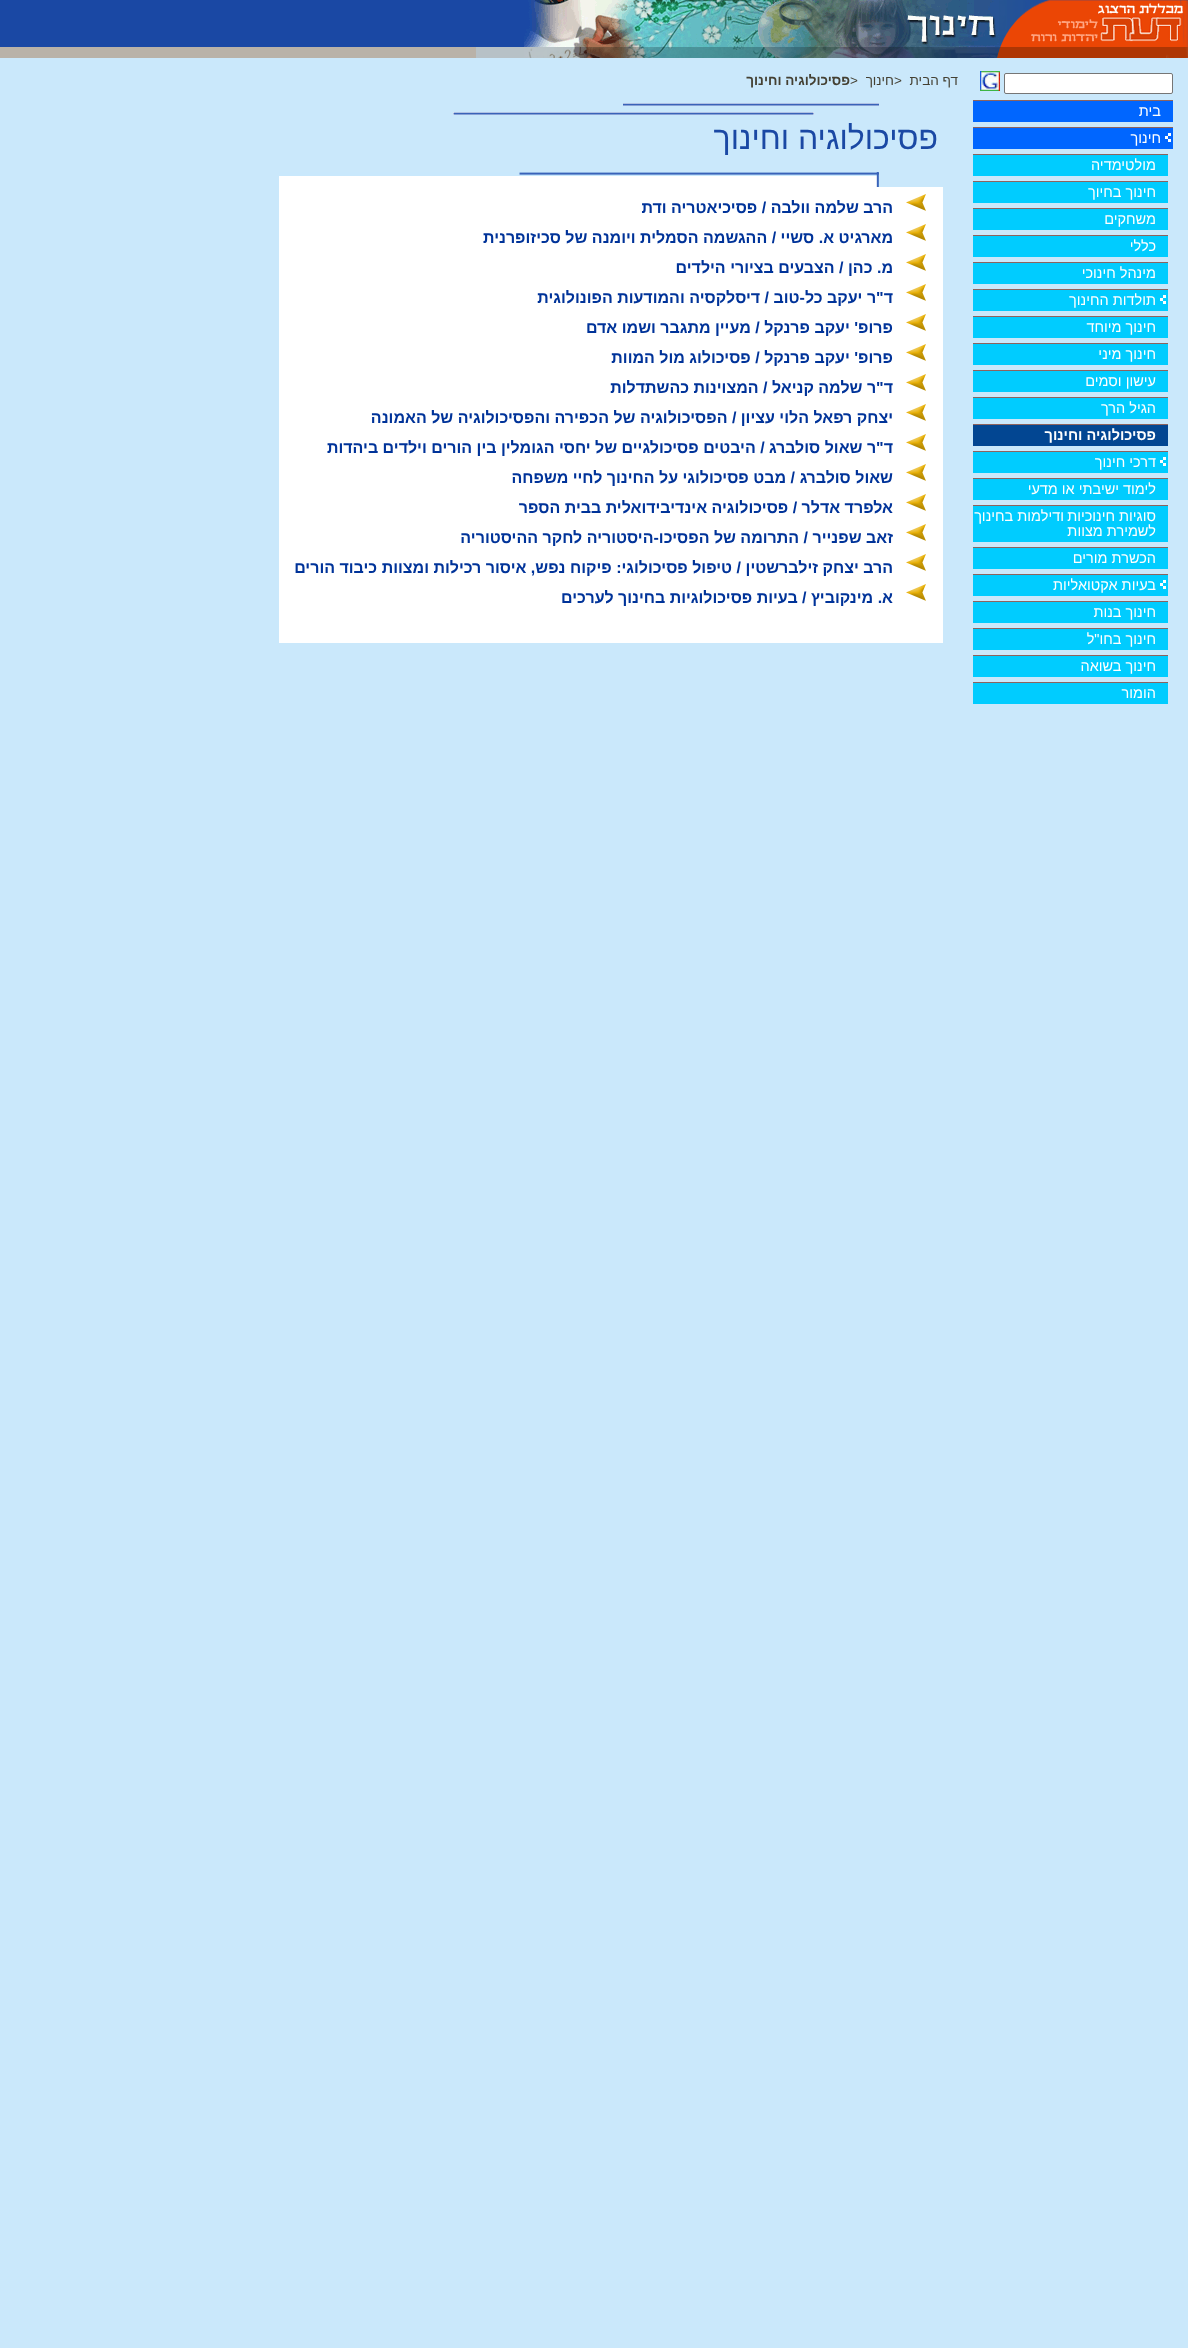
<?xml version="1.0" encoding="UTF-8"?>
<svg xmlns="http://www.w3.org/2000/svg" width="1188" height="2348">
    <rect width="100%" height="100%" fill="#CAE8FB"/>
    <rect x="0" y="0" width="524" height="47" fill="#1A48A4"/>
    <image x="999" y="0" width="189" height="47" href="img_01.png"/>
    <image x="524" y="0" width="475" height="47" href="img_02.png"/>
    <rect x="0" y="47" width="476" height="11" fill="#B9B2A8"/>
    <image x="476" y="47" width="712" height="11" href="img_03.png"/>
    <text x="958" y="85" font-family="Liberation Sans" font-size="13.5" direction="rtl" fill="#444032">דף הבית</text>
    <text x="894" y="85" font-family="Liberation Sans" font-size="13.5" fill="#444032">&gt;</text>
    <text x="894" y="85" font-family="Liberation Sans" font-size="13.5" direction="rtl" fill="#444032">חינוך</text>
    <text x="850" y="85" font-family="Liberation Sans" font-size="13.5" fill="#444032">&gt;</text>
    <text x="850" y="85" font-family="Liberation Sans" font-size="13.5" font-weight="700" direction="rtl" fill="#444032">פסיכולוגיה וחינוך</text>
    <rect x="1004.5" y="73.5" width="168" height="20" rx="1.5" fill="#FFFFFF" stroke="#767676"/>
    <image x="980" y="71" width="20" height="20" href="img_04.png"/>
    <rect x="973" y="101" width="200" height="21" fill="#0066FF"/>
    <rect x="973" y="100" width="200" height="1" fill="#8D635E"/>
    <text x="1161" y="116" font-family="Liberation Sans" font-size="14.5" direction="rtl" fill="#FFFFFF">בית</text>
    <rect x="973" y="128" width="200" height="21" fill="#0066FF"/>
    <rect x="973" y="127" width="200" height="1" fill="#8D635E"/>
    <image x="1165" y="133" width="6" height="9" href="img_05.png"/>
    <text x="1161" y="143" font-family="Liberation Sans" font-size="14.5" direction="rtl" fill="#FFFFFF">חינוך</text>
    <rect x="973" y="155" width="195" height="21" fill="#00CCFF"/>
    <rect x="973" y="154" width="195" height="1" fill="#8D635E"/>
    <text x="1156" y="170" font-family="Liberation Sans" font-size="14.5" direction="rtl" fill="#FFFFFF">מולטימדיה</text>
    <rect x="973" y="182" width="195" height="21" fill="#00CCFF"/>
    <rect x="973" y="181" width="195" height="1" fill="#8D635E"/>
    <text x="1156" y="197" font-family="Liberation Sans" font-size="14.5" direction="rtl" fill="#FFFFFF">חינוך בחיוך</text>
    <rect x="973" y="209" width="195" height="21" fill="#00CCFF"/>
    <rect x="973" y="208" width="195" height="1" fill="#8D635E"/>
    <text x="1156" y="224" font-family="Liberation Sans" font-size="14.5" direction="rtl" fill="#FFFFFF">משחקים</text>
    <rect x="973" y="236" width="195" height="21" fill="#00CCFF"/>
    <rect x="973" y="235" width="195" height="1" fill="#8D635E"/>
    <text x="1156" y="251" font-family="Liberation Sans" font-size="14.5" direction="rtl" fill="#FFFFFF">כללי</text>
    <rect x="973" y="263" width="195" height="21" fill="#00CCFF"/>
    <rect x="973" y="262" width="195" height="1" fill="#8D635E"/>
    <text x="1156" y="278" font-family="Liberation Sans" font-size="14.5" direction="rtl" fill="#FFFFFF">מינהל חינוכי</text>
    <rect x="973" y="290" width="195" height="21" fill="#00CCFF"/>
    <rect x="973" y="289" width="195" height="1" fill="#8D635E"/>
    <image x="1160" y="295" width="6" height="9" href="img_06.png"/>
    <text x="1156" y="305" font-family="Liberation Sans" font-size="14.5" direction="rtl" fill="#FFFFFF">תולדות החינוך</text>
    <rect x="973" y="317" width="195" height="21" fill="#00CCFF"/>
    <rect x="973" y="316" width="195" height="1" fill="#8D635E"/>
    <text x="1156" y="332" font-family="Liberation Sans" font-size="14.5" direction="rtl" fill="#FFFFFF">חינוך מיוחד</text>
    <rect x="973" y="344" width="195" height="21" fill="#00CCFF"/>
    <rect x="973" y="343" width="195" height="1" fill="#8D635E"/>
    <text x="1156" y="359" font-family="Liberation Sans" font-size="14.5" direction="rtl" fill="#FFFFFF">חינוך מיני</text>
    <rect x="973" y="371" width="195" height="21" fill="#00CCFF"/>
    <rect x="973" y="370" width="195" height="1" fill="#8D635E"/>
    <text x="1156" y="386" font-family="Liberation Sans" font-size="14.5" direction="rtl" fill="#FFFFFF">עישון וסמים</text>
    <rect x="973" y="398" width="195" height="21" fill="#00CCFF"/>
    <rect x="973" y="397" width="195" height="1" fill="#8D635E"/>
    <text x="1156" y="413" font-family="Liberation Sans" font-size="14.5" direction="rtl" fill="#FFFFFF">הגיל הרך</text>
    <rect x="973" y="425" width="195" height="21" fill="#024692"/>
    <rect x="973" y="424" width="195" height="1" fill="#8D635E"/>
    <text x="1156" y="440" font-family="Liberation Sans" font-size="14.5" font-weight="700" direction="rtl" fill="#FFFFFF">פסיכולוגיה וחינוך</text>
    <rect x="973" y="452" width="195" height="21" fill="#00CCFF"/>
    <rect x="973" y="451" width="195" height="1" fill="#8D635E"/>
    <image x="1160" y="457" width="6" height="9" href="img_06.png"/>
    <text x="1156" y="467" font-family="Liberation Sans" font-size="14.5" direction="rtl" fill="#FFFFFF">דרכי חינוך</text>
    <rect x="973" y="479" width="195" height="21" fill="#00CCFF"/>
    <rect x="973" y="478" width="195" height="1" fill="#8D635E"/>
    <text x="1156" y="494" font-family="Liberation Sans" font-size="14.5" direction="rtl" fill="#FFFFFF">לימוד ישיבתי או מדעי</text>
    <rect x="973" y="506" width="195" height="36" fill="#00CCFF"/>
    <rect x="973" y="505" width="195" height="1" fill="#8D635E"/>
    <text x="1156" y="521" font-family="Liberation Sans" font-size="14.5" direction="rtl" fill="#FFFFFF">סוגיות חינוכיות</text>
    <text x="1064" y="521" font-family="Liberation Sans" font-size="14.5" direction="rtl" fill="#FFFFFF">ודילמות בחינוך</text>
    <text x="1156" y="536" font-family="Liberation Sans" font-size="14.5" direction="rtl" fill="#FFFFFF">לשמירת מצוות</text>
    <rect x="973" y="548" width="195" height="21" fill="#00CCFF"/>
    <rect x="973" y="547" width="195" height="1" fill="#8D635E"/>
    <text x="1156" y="563" font-family="Liberation Sans" font-size="14.5" direction="rtl" fill="#FFFFFF">הכשרת מורים</text>
    <rect x="973" y="575" width="195" height="21" fill="#00CCFF"/>
    <rect x="973" y="574" width="195" height="1" fill="#8D635E"/>
    <image x="1160" y="580" width="6" height="9" href="img_06.png"/>
    <text x="1156" y="590" font-family="Liberation Sans" font-size="14.5" direction="rtl" fill="#FFFFFF">בעיות אקטואליות</text>
    <rect x="973" y="602" width="195" height="21" fill="#00CCFF"/>
    <rect x="973" y="601" width="195" height="1" fill="#8D635E"/>
    <text x="1156" y="617" font-family="Liberation Sans" font-size="14.5" direction="rtl" fill="#FFFFFF">חינוך בנות</text>
    <rect x="973" y="629" width="195" height="21" fill="#00CCFF"/>
    <rect x="973" y="628" width="195" height="1" fill="#8D635E"/>
    <text x="1156" y="644" font-family="Liberation Sans" font-size="14.5" direction="rtl" fill="#FFFFFF">חינוך בחו"ל</text>
    <rect x="973" y="656" width="195" height="21" fill="#00CCFF"/>
    <rect x="973" y="655" width="195" height="1" fill="#8D635E"/>
    <text x="1156" y="671" font-family="Liberation Sans" font-size="14.5" direction="rtl" fill="#FFFFFF">חינוך בשואה</text>
    <rect x="973" y="683" width="195" height="21" fill="#00CCFF"/>
    <rect x="973" y="682" width="195" height="1" fill="#8D635E"/>
    <text x="1156" y="698" font-family="Liberation Sans" font-size="14.5" direction="rtl" fill="#FFFFFF">הומור</text>
    <image x="453" y="103" width="426" height="12" href="img_07.png"/>
    <text x="938" y="149" font-family="Liberation Sans" font-size="32" direction="rtl" fill="#1A48A4">פסיכולוגיה וחינוך</text>
    <image x="279" y="172" width="600" height="15" href="img_08.png"/>
    <rect x="279" y="187" width="664" height="456" fill="#FFFFFF"/>
    <image x="906" y="194" width="20" height="17" href="img_09.png"/>
    <text x="893" y="213" font-family="Liberation Sans" font-size="16" font-weight="700" direction="rtl" fill="#003399">הרב שלמה וולבה / פסיכיאטריה ודת</text>
    <image x="906" y="224" width="20" height="17" href="img_09.png"/>
    <text x="893" y="243" font-family="Liberation Sans" font-size="16" font-weight="700" direction="rtl" fill="#003399">מארגיט א. סשיי / ההגשמה הסמלית ויומנה של סכיזופרנית</text>
    <image x="906" y="254" width="20" height="17" href="img_09.png"/>
    <text x="893" y="273" font-family="Liberation Sans" font-size="16" font-weight="700" direction="rtl" fill="#003399">מ. כהן / הצבעים בציורי הילדים</text>
    <image x="906" y="284" width="20" height="17" href="img_09.png"/>
    <text x="893" y="303" font-family="Liberation Sans" font-size="16" font-weight="700" direction="rtl" fill="#003399">ד"ר יעקב כל-טוב / דיסלקסיה והמודעות הפונולוגית</text>
    <image x="906" y="314" width="20" height="17" href="img_09.png"/>
    <text x="893" y="333" font-family="Liberation Sans" font-size="16" font-weight="700" direction="rtl" fill="#003399">פרופ' יעקב פרנקל / מעיין מתגבר ושמו אדם</text>
    <image x="906" y="344" width="20" height="17" href="img_09.png"/>
    <text x="893" y="363" font-family="Liberation Sans" font-size="16" font-weight="700" direction="rtl" fill="#003399">פרופ' יעקב פרנקל / פסיכולוג מול המוות</text>
    <image x="906" y="374" width="20" height="17" href="img_09.png"/>
    <text x="893" y="393" font-family="Liberation Sans" font-size="16" font-weight="700" direction="rtl" fill="#003399">ד"ר שלמה קניאל / המצוינות כהשתדלות</text>
    <image x="906" y="404" width="20" height="17" href="img_09.png"/>
    <text x="893" y="423" font-family="Liberation Sans" font-size="16" font-weight="700" direction="rtl" fill="#003399">יצחק רפאל הלוי עציון / הפסיכולוגיה של הכפירה והפסיכולוגיה של האמונה</text>
    <image x="906" y="434" width="20" height="17" href="img_09.png"/>
    <text x="893" y="453" font-family="Liberation Sans" font-size="16" font-weight="700" direction="rtl" fill="#003399">ד"ר שאול סולברג / היבטים פסיכולגיים של יחסי הגומלין בין הורים וילדים ביהדות</text>
    <image x="906" y="464" width="20" height="17" href="img_09.png"/>
    <text x="893" y="483" font-family="Liberation Sans" font-size="16" font-weight="700" direction="rtl" fill="#003399">שאול סולברג</text>
    <text x="795" y="483" font-family="Liberation Sans" font-size="16" font-weight="700" direction="rtl" fill="#003399">/ מבט פסיכולוגי על החינוך לחיי משפחה</text>
    <image x="906" y="494" width="20" height="17" href="img_09.png"/>
    <text x="893" y="513" font-family="Liberation Sans" font-size="16" font-weight="700" direction="rtl" fill="#003399">אלפרד אדלר / פסיכולוגיה אינדיבידואלית בבית הספר</text>
    <image x="906" y="524" width="20" height="17" href="img_09.png"/>
    <text x="893" y="543" font-family="Liberation Sans" font-size="16" font-weight="700" direction="rtl" fill="#003399">זאב שפנייר / התרומה של הפסיכו-היסטוריה לחקר ההיסטוריה</text>
    <image x="906" y="554" width="20" height="17" href="img_09.png"/>
    <text x="893" y="573" font-family="Liberation Sans" font-size="16" font-weight="700" direction="rtl" fill="#003399">הרב יצחק זילברשטין</text>
    <text x="741" y="573" font-family="Liberation Sans" font-size="16" font-weight="700" direction="rtl" fill="#003399">/ טיפול פסיכולוגי: פיקוח נפש, איסור רכילות ומצוות כיבוד הורים</text>
    <image x="906" y="584" width="20" height="17" href="img_09.png"/>
    <text x="893" y="603" font-family="Liberation Sans" font-size="16" font-weight="700" direction="rtl" fill="#003399">א. מינקוביץ / בעיות פסיכולוגיות בחינוך לערכים</text>
</svg>
